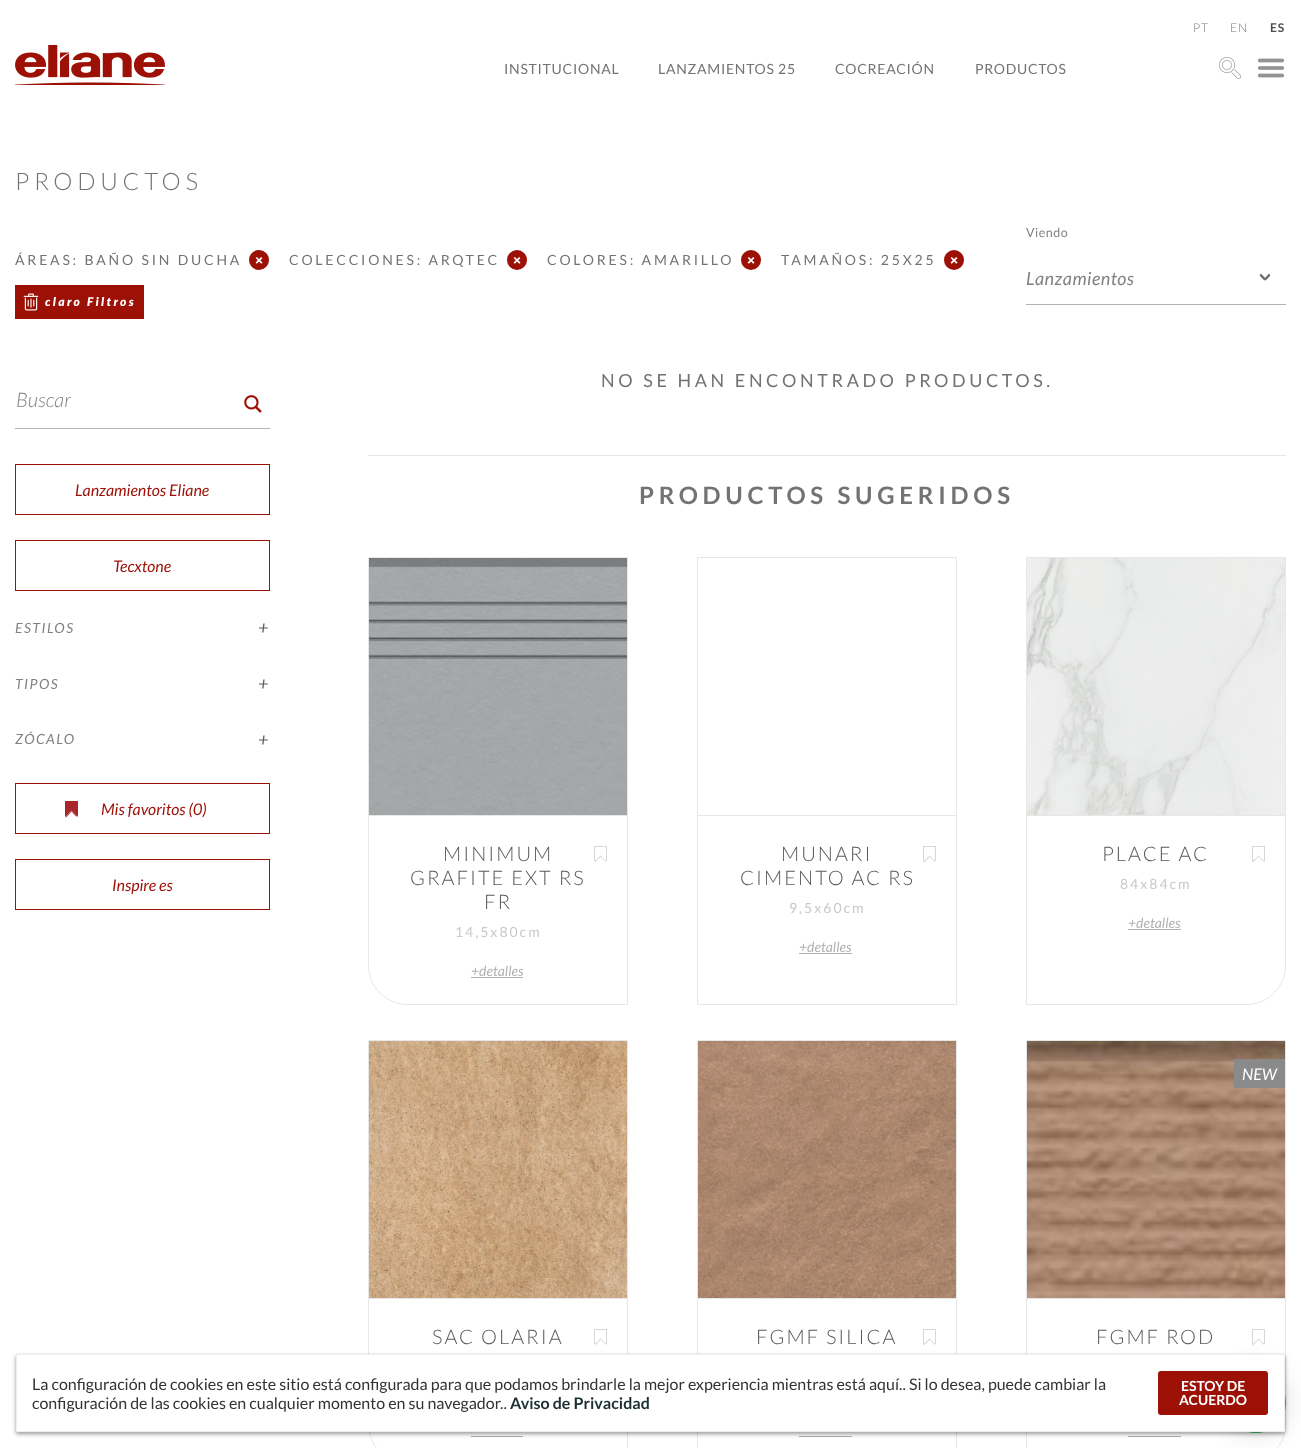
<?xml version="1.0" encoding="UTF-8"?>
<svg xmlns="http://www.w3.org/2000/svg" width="1301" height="1448">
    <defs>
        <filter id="blur1" x="-50%" y="-200%" width="200%" height="500%"><feGaussianBlur stdDeviation="14.5"/></filter>
        <radialGradient id="g1" gradientUnits="userSpaceOnUse" cx="1256" cy="1403" r="42"><stop offset="0" stop-color="#25D366"/><stop offset="1" stop-color="#1EB456"/></radialGradient>
        <filter id="blur2" x="-50%" y="-200%" width="200%" height="500%"><feGaussianBlur stdDeviation="2"/></filter>
    </defs>
    <rect width="100%" height="100%" fill="#FFFFFF"/>
    <text x="1193" y="32" font-family="Lato" font-size="12" font-weight="300" letter-spacing="1" fill="#7B7979">PT</text>
    <text x="1230" y="32" font-family="Lato" font-size="12" font-weight="300" letter-spacing="1" fill="#7B7979">EN</text>
    <text x="1270" y="32" font-family="Lato" font-size="12" font-weight="700" letter-spacing="1" fill="#4F4C4D">ES</text>
    <image x="15" y="45" width="150" height="40" href="img_01.png"/>
    <text x="504" y="74" font-family="Lato" font-size="14" letter-spacing="0.75" fill="#727375">INSTITUCIONAL</text>
    <text x="658" y="74" font-family="Lato" font-size="14" letter-spacing="0.75" fill="#727375">LANZAMIENTOS 25</text>
    <text x="835" y="74" font-family="Lato" font-size="14" letter-spacing="0.75" fill="#727375">COCREACIÓN</text>
    <text x="975" y="74" font-family="Lato" font-size="14" letter-spacing="0.75" fill="#727375">PRODUCTOS</text>
    <image x="1219" y="57" width="22" height="22" href="img_02.png"/>
    <image x="1257" y="58" width="28" height="20" href="img_03.png"/>
    <text x="15" y="190" font-family="Lato" font-size="24" font-weight="300" letter-spacing="4.75" fill="#727375">PRODUCTOS</text>
    <text x="15" y="265" font-family="Lato" font-size="14" letter-spacing="2.8" fill="#727375">ÁREAS: BAÑO SIN DUCHA</text>
    <circle cx="259" cy="260" r="10" fill="#9C1006"/>
    <text x="255" y="265" font-family="Lato" font-size="14" font-weight="900" letter-spacing="2.8" fill="#FFFFFF">×</text>
    <text x="289" y="265" font-family="Lato" font-size="14" letter-spacing="2.8" fill="#727375">COLECCIONES: ARQTEC</text>
    <circle cx="517" cy="260" r="10" fill="#9C1006"/>
    <text x="513" y="265" font-family="Lato" font-size="14" font-weight="900" letter-spacing="2.8" fill="#FFFFFF">×</text>
    <text x="547" y="265" font-family="Lato" font-size="14" letter-spacing="2.8" fill="#727375">COLORES: AMARILLO</text>
    <circle cx="751" cy="260" r="10" fill="#9C1006"/>
    <text x="747" y="265" font-family="Lato" font-size="14" font-weight="900" letter-spacing="2.8" fill="#FFFFFF">×</text>
    <text x="781" y="265" font-family="Lato" font-size="14" letter-spacing="2.8" fill="#727375">TAMAÑOS: 25X25</text>
    <circle cx="954" cy="260" r="10" fill="#9C1006"/>
    <text x="950" y="265" font-family="Lato" font-size="14" font-weight="900" letter-spacing="2.8" fill="#FFFFFF">×</text>
    <rect x="15" y="285" width="129" height="34" fill="#9C1006"/>
    <image x="23" y="293" width="16" height="18" href="img_04.png"/>
    <text x="45" y="306" font-family="Lato" font-size="12" font-weight="900" font-style="italic" letter-spacing="2.4" fill="#FFFFFF">claro Filtros</text>
    <text x="1026" y="237" font-family="Lato" font-size="12.5" letter-spacing="0.5" fill="#808183">Viendo</text>
    <image x="1259" y="273" width="12" height="8" href="img_05.png"/>
    <rect x="1026" y="304" width="260" height="1" fill="#B0B0B0"/>
    <text x="1026" y="285" font-family="Lato" font-size="18" font-style="italic" letter-spacing="0.5" fill="#808183">Lanzamientos</text>
    <text x="16" y="407" font-family="Lato" font-size="20" font-weight="300" font-style="italic" fill="#808183">Buscar</text>
    <image x="244" y="395" width="18" height="18" href="img_06.png"/>
    <rect x="15" y="428" width="255" height="1" fill="#B4B4B4"/>
    <rect x="15.5" y="464.5" width="254" height="50" fill="none" stroke="#9C1006"/>
    <text x="75" y="496" font-family="Lato" font-size="16" font-style="italic" fill="#9C1006">Lanzamientos Eliane</text>
    <rect x="15.5" y="540.5" width="254" height="50" fill="none" stroke="#9C1006"/>
    <text x="113" y="572" font-family="Lato" font-size="16" font-style="italic" fill="#9C1006">Tecxtone</text>
    <text x="15" y="633" font-family="Lato" font-size="14" font-style="italic" letter-spacing="1.5" fill="#808183">ESTILOS</text>
    <text x="258" y="634" font-family="Lato" font-size="18" font-style="italic" letter-spacing="1.5" fill="#58595B">+</text>
    <text x="15" y="689" font-family="Lato" font-size="14" font-style="italic" letter-spacing="1.5" fill="#808183">TIPOS</text>
    <text x="258" y="690" font-family="Lato" font-size="18" font-style="italic" letter-spacing="1.5" fill="#58595B">+</text>
    <text x="15" y="744" font-family="Lato" font-size="14" font-style="italic" letter-spacing="1.5" fill="#808183">ZÓCALO</text>
    <text x="258" y="746" font-family="Lato" font-size="18" font-style="italic" letter-spacing="1.5" fill="#58595B">+</text>
    <rect x="15.5" y="783.5" width="254" height="50" fill="none" stroke="#9C1006"/>
    <rect x="65" y="801" width="13" height="15" fill="#A9262B"/>
    <path d="M 71.5 810.5 L 78 817 L 71.5 823 L 65 817 Z" fill="#FFFFFF"/>
    <path d="M 71.5 810.5 L 78 817 L 77 817.5 L 71 811 Z" fill="#A9262B"/>
    <path d="M 77 816 L 78 817 L 71.5 823 L 71 822.5 Z" fill="#FFFFFF"/>
    <path d="M 71.5 810.5 L 72 811 L 66 817.5 L 65 817 Z" fill="#A9262B"/>
    <text x="101" y="815" font-family="Lato" font-size="16" font-style="italic" fill="#9C1006">Mis favoritos (0)</text>
    <rect x="15.5" y="859.5" width="254" height="50" fill="none" stroke="#9C1006"/>
    <text x="112" y="891" font-family="Lato" font-size="16" font-style="italic" fill="#9C1006">Inspire es</text>
    <text x="601" y="387" font-family="Lato" font-size="18" letter-spacing="3.6" fill="#727375">NO SE HAN ENCONTRADO PRODUCTOS.</text>
    <rect x="368" y="455" width="918" height="1" fill="#E7E7E7"/>
    <text x="639" y="504" font-family="Lato" font-size="24" font-weight="700" letter-spacing="4.75" fill="#727375">PRODUCTOS SUGERIDOS</text>
    <path d="M 368.5 557.5 H 627.5 V 1004.5 H 408 C 386 1004.5 368.5 987 368.5 965 Z" fill="none" stroke="#E7E7E7"/>
    <rect x="369" y="815" width="258" height="1" fill="#E7E7E7"/>
    <image x="369" y="558" width="258" height="257" href="img_07.png"/>
    <text x="443" y="861" font-family="Lato" font-size="20" font-weight="300" letter-spacing="2" fill="#58595B">MINIMUM</text>
    <text x="410" y="885" font-family="Lato" font-size="20" font-weight="300" letter-spacing="2" fill="#58595B">GRAFITE EXT RS</text>
    <text x="484" y="909" font-family="Lato" font-size="20" font-weight="300" letter-spacing="2" fill="#58595B">FR</text>
    <text x="455" y="937" font-family="Lato" font-size="14" letter-spacing="2" fill="#C9C9CA">14,5x80cm</text>
    <rect x="594.5" y="846.5" width="12" height="14" fill="none" stroke="#D7D7D7"/>
    <path d="M 600.5 855.5 L 607 862 L 600.5 868 L 594.5 862 Z" fill="#FFFFFF"/>
    <path d="M 600.5 855.5 L 607 862 L 606.5 862.5 L 600 856 Z" fill="#D7D7D7"/>
    <path d="M 606.5 861 L 607 862 L 600.5 868 L 600 867.5 Z" fill="#FFFFFF"/>
    <path d="M 600.5 855.5 L 601.5 856 L 595 862.5 L 594.5 862 Z" fill="#D7D7D7"/>
    <text x="471" y="976" font-family="Lato" font-size="14" font-style="italic" fill="#B0B1B1">+detalles</text>
    <rect x="471" y="977" width="52" height="1" fill="#B0B1B1"/>
    <rect x="697.5" y="557.5" width="259" height="447" fill="none" stroke="#E7E7E7"/>
    <rect x="698" y="815" width="258" height="1" fill="#E7E7E7"/>
    <text x="781" y="861" font-family="Lato" font-size="20" font-weight="300" letter-spacing="2" fill="#58595B">MUNARI</text>
    <text x="740" y="885" font-family="Lato" font-size="20" font-weight="300" letter-spacing="2" fill="#58595B">CIMENTO AC RS</text>
    <text x="789" y="913" font-family="Lato" font-size="14" letter-spacing="2" fill="#C9C9CA">9,5x60cm</text>
    <rect x="923.5" y="846.5" width="12" height="14" fill="none" stroke="#D7D7D7"/>
    <path d="M 929.5 855.5 L 936 862 L 929.5 868 L 923 862 Z" fill="#FFFFFF"/>
    <path d="M 929.5 855.5 L 936 862 L 935.5 862.5 L 929 856 Z" fill="#D7D7D7"/>
    <path d="M 935.5 861 L 936 862 L 929.5 868 L 929 867.5 Z" fill="#FFFFFF"/>
    <path d="M 929.5 855.5 L 930.5 856 L 924 862.5 L 923 862 Z" fill="#D7D7D7"/>
    <text x="799" y="952" font-family="Lato" font-size="14" font-style="italic" fill="#B0B1B1">+detalles</text>
    <rect x="799" y="953" width="53" height="1" fill="#B0B1B1"/>
    <path d="M 1026.5 557.5 H 1285.5 V 965 C 1285.5 987 1268 1004.5 1246 1004.5 H 1026.5 Z" fill="none" stroke="#E7E7E7"/>
    <rect x="1027" y="815" width="258" height="1" fill="#E7E7E7"/>
    <image x="1027" y="558" width="258" height="257" href="img_08.png"/>
    <text x="1102" y="861" font-family="Lato" font-size="20" font-weight="300" letter-spacing="2" fill="#58595B">PLACE AC</text>
    <text x="1120" y="889" font-family="Lato" font-size="14" letter-spacing="2" fill="#C9C9CA">84x84cm</text>
    <rect x="1252.5" y="846.5" width="12" height="14" fill="none" stroke="#D7D7D7"/>
    <path d="M 1258.5 855.5 L 1265 862 L 1258.5 868 L 1252 862 Z" fill="#FFFFFF"/>
    <path d="M 1258.5 855.5 L 1265 862 L 1264 862.5 L 1258 856 Z" fill="#D7D7D7"/>
    <path d="M 1264 861 L 1265 862 L 1258.5 868 L 1258 867.5 Z" fill="#FFFFFF"/>
    <path d="M 1258.5 855.5 L 1259 856 L 1253 862.5 L 1252 862 Z" fill="#D7D7D7"/>
    <text x="1128" y="928" font-family="Lato" font-size="14" font-style="italic" fill="#B0B1B1">+detalles</text>
    <rect x="1128" y="929" width="53" height="1" fill="#B0B1B1"/>
    <path d="M 368.5 1040.5 H 627.5 V 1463.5 H 408 C 386 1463.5 368.5 1446 368.5 1424 Z" fill="none" stroke="#E7E7E7"/>
    <rect x="369" y="1298" width="258" height="1" fill="#E7E7E7"/>
    <image x="369" y="1041" width="258" height="257" href="img_09.png"/>
    <text x="432" y="1344" font-family="Lato" font-size="20" font-weight="300" letter-spacing="2" fill="#58595B">SAC OLARIA</text>
    <rect x="594.5" y="1329.5" width="12" height="14" fill="none" stroke="#D7D7D7"/>
    <path d="M 600.5 1338.5 L 607 1345 L 600.5 1351 L 594.5 1345 Z" fill="#FFFFFF"/>
    <path d="M 600.5 1338.5 L 607 1345 L 606.5 1345.5 L 600 1339 Z" fill="#D7D7D7"/>
    <path d="M 606.5 1344 L 607 1345 L 600.5 1351 L 600 1350.5 Z" fill="#FFFFFF"/>
    <path d="M 600.5 1338.5 L 601.5 1339 L 595 1345.5 L 594.5 1345 Z" fill="#D7D7D7"/>
    <rect x="471" y="1436" width="52" height="1" fill="#B0B1B1"/>
    <rect x="697.5" y="1040.5" width="259" height="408" fill="none" stroke="#E7E7E7"/>
    <rect x="698" y="1298" width="258" height="1" fill="#E7E7E7"/>
    <image x="698" y="1041" width="258" height="257" href="img_10.png"/>
    <text x="756" y="1344" font-family="Lato" font-size="20" font-weight="300" letter-spacing="2" fill="#58595B">FGMF SILICA</text>
    <rect x="923.5" y="1329.5" width="12" height="14" fill="none" stroke="#D7D7D7"/>
    <path d="M 929.5 1338.5 L 936 1345 L 929.5 1351 L 923 1345 Z" fill="#FFFFFF"/>
    <path d="M 929.5 1338.5 L 936 1345 L 935.5 1345.5 L 929 1339 Z" fill="#D7D7D7"/>
    <path d="M 935.5 1344 L 936 1345 L 929.5 1351 L 929 1350.5 Z" fill="#FFFFFF"/>
    <path d="M 929.5 1338.5 L 930.5 1339 L 924 1345.5 L 923 1345 Z" fill="#D7D7D7"/>
    <rect x="799" y="1436" width="53" height="1" fill="#B0B1B1"/>
    <path d="M 1026.5 1040.5 H 1285.5 V 1424 C 1285.5 1446 1268 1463.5 1246 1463.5 H 1026.5 Z" fill="none" stroke="#E7E7E7"/>
    <image x="1027" y="1041" width="258" height="257" href="img_11.png"/>
    <rect x="1234" y="1059" width="51" height="29" fill="#8A8A8A"/>
    <text x="1242" y="1080" font-family="Lato" font-size="16" font-style="italic" fill="#FFFFFF">NEW</text>
    <rect x="1027" y="1298" width="258" height="1" fill="#E7E7E7"/>
    <text x="1096" y="1344" font-family="Lato" font-size="20" font-weight="300" letter-spacing="2" fill="#58595B">FGMF ROD</text>
    <rect x="1252.5" y="1329.5" width="12" height="14" fill="none" stroke="#D7D7D7"/>
    <path d="M 1258.5 1338.5 L 1265 1345 L 1258.5 1351 L 1252 1345 Z" fill="#FFFFFF"/>
    <path d="M 1258.5 1338.5 L 1265 1345 L 1264 1345.5 L 1258 1339 Z" fill="#D7D7D7"/>
    <path d="M 1264 1344 L 1265 1345 L 1258.5 1351 L 1258 1350.5 Z" fill="#FFFFFF"/>
    <path d="M 1258.5 1338.5 L 1259 1339 L 1253 1345.5 L 1252 1345 Z" fill="#D7D7D7"/>
    <rect x="1128" y="1436" width="53" height="1" fill="#B0B1B1"/>
    <rect x="1229" y="1376" width="54" height="54" rx="27" fill="#000000" fill-opacity="0.2" filter="url(#blur1)"/>
    <circle cx="1256" cy="1403" r="30" fill="url(#g1)"/>
    <rect x="16" y="1356" width="1269" height="78" fill="#000000" fill-opacity="0.4" filter="url(#blur2)"/>
    <rect x="16.5" y="1354.5" width="1268" height="77" fill="#FFFFFF" stroke="#EEEEEE"/>
    <text font-family="Lato" font-size="16" fill="#333333">
        <tspan x="32" y="1390">La configuración de cookies en este sitio está configurada para que podamos brindarle la mejor experiencia mientras está aquí.. Si lo desea, puede cambiar la</tspan>
        <tspan x="32" y="1409">configuración de las cookies en cualquier momento en su navegador..</tspan>
    </text>
    <text x="510" y="1409" font-family="Lato" font-size="16" font-weight="700" fill="#1C2F33">Aviso de Privacidad</text>
    <rect x="1158" y="1371" width="110" height="44" rx="3" fill="#9C1006"/>
    <text x="1181" y="1391" font-family="Lato" font-size="14" font-weight="700" fill="#FFFFFF">ESTOY DE</text>
    <text x="1179" y="1405" font-family="Lato" font-size="14" font-weight="700" fill="#FFFFFF">ACUERDO</text>
</svg>
